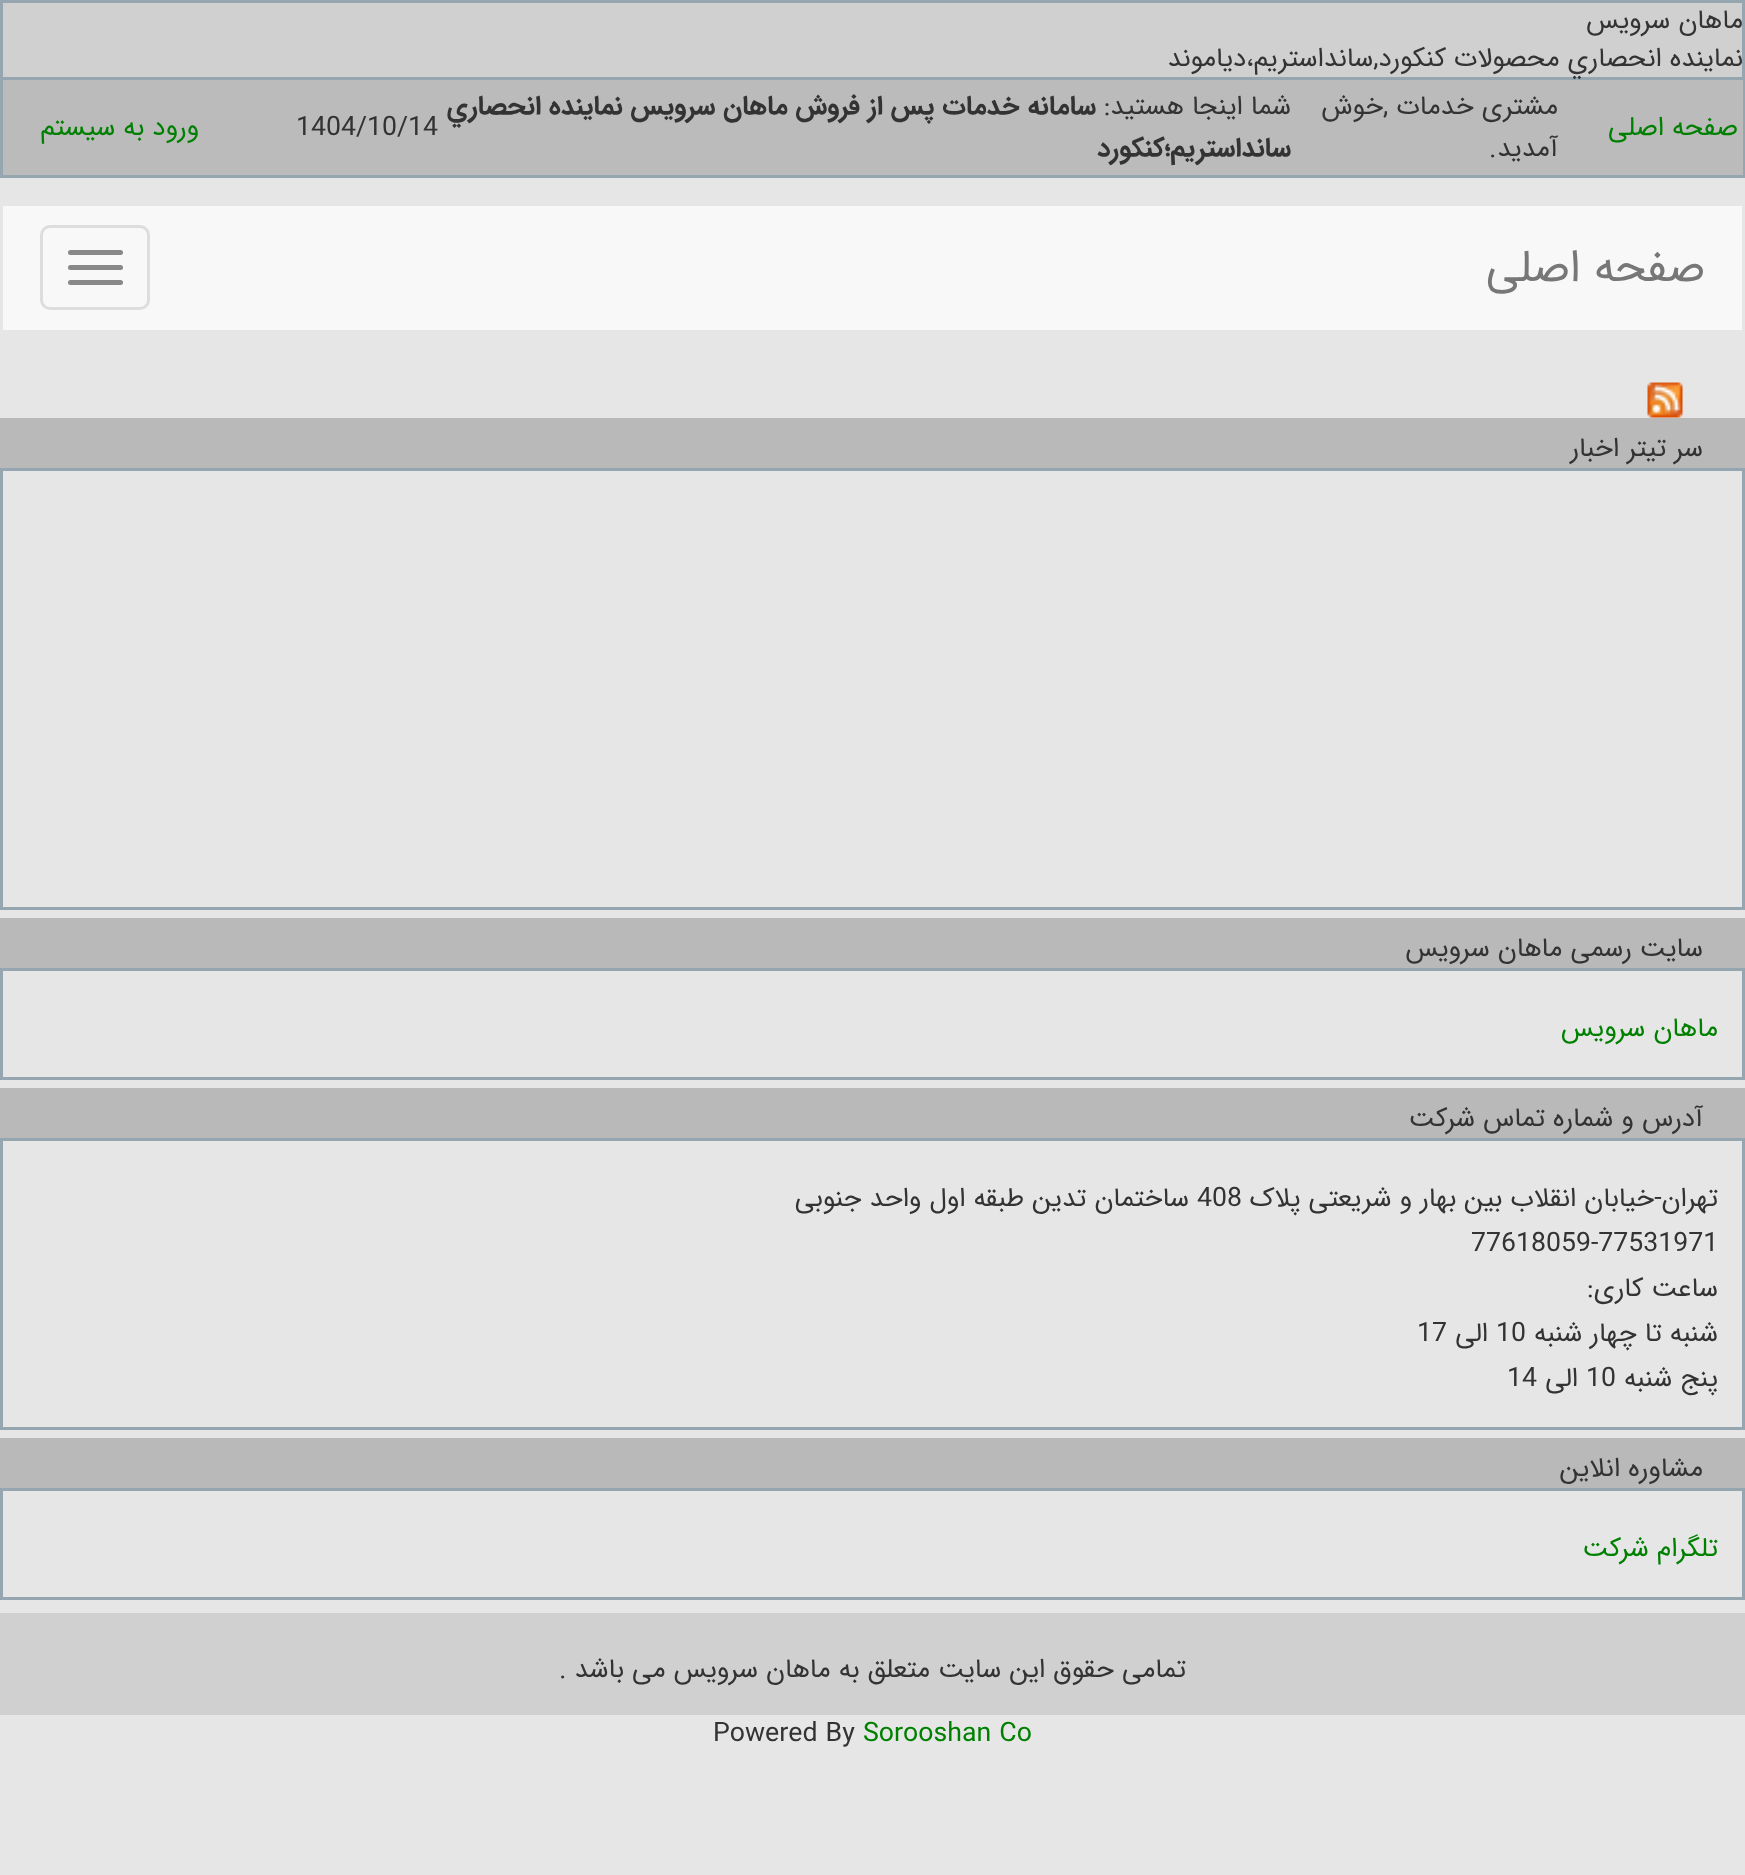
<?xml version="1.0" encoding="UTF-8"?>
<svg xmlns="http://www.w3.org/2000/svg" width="1745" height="1875">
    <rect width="100%" height="100%" fill="#E6E6E6"/>
    <rect x="1.5" y="1.5" width="1742" height="77" fill="#D0D0D0" stroke="#96A6B1" stroke-width="3"/>
    <text font-family="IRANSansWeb" font-size="26.7" direction="rtl" fill="#333333">
        <tspan x="1743" y="28">ماهان سرويس</tspan>
        <tspan x="1743" y="66">نماينده انحصاري محصولات کنکورد,سانداستريم،دياموند</tspan>
    </text>
    <rect x="3" y="80" width="1740" height="95" fill="#BBBBBB"/>
    <rect x="1743" y="80" width="2" height="98" fill="#96A6B1"/>
    <rect x="0" y="175" width="1745" height="3" fill="#96A6B1"/>
    <rect x="0" y="80" width="3" height="98" fill="#96A6B1"/>
    <text x="1738" y="135" font-family="IRANSansWeb" font-size="26.7" direction="rtl" fill="#008000">صفحه اصلی</text>
    <text font-family="IRANSansWeb" font-size="26.7" direction="rtl" fill="#333333">
        <tspan x="1558" y="114">مشتری خدمات ,خوش</tspan>
        <tspan x="1558" y="156">آمدید</tspan>
    </text>
    <text x="1489" y="156" font-family="IRANSansWeb" font-size="26.7" fill="#333333">.</text>
    <text x="1291" y="114" font-family="IRANSansWeb" font-size="26.7" direction="rtl" fill="#333333">شما اینجا هستید:</text>
    <text x="1096" y="114" font-family="IRANSansWeb" font-size="26.7" font-weight="700" direction="rtl" fill="#333333">سامانه خدمات پس از فروش ماهان سرويس نماينده انحصاري</text>
    <text x="1291" y="156" font-family="IRANSansWeb" font-size="26.7" font-weight="700" direction="rtl" fill="#333333">سانداستريم؛کنکورد</text>
    <text x="296" y="135" font-family="IRANSansWeb" font-size="26.7" fill="#333333">1404/10/14</text>
    <text x="199" y="135" font-family="IRANSansWeb" font-size="26.7" direction="rtl" fill="#008000">ورود به سیستم</text>
    <rect x="3" y="206" width="1739" height="124" fill="#F8F8F8"/>
    <text x="1705" y="281" font-family="IRANSansWeb" font-size="45" direction="rtl" fill="#777777">صفحه اصلی</text>
    <rect x="41.5" y="226.5" width="107" height="82" rx="8.5" fill="none" stroke="#DDDDDD" stroke-width="3"/>
    <rect x="68" y="250" width="55" height="5" rx="2.5" fill="#888888"/>
    <rect x="68" y="265" width="55" height="5" rx="2.5" fill="#888888"/>
    <rect x="68" y="280" width="55" height="5" rx="2.5" fill="#888888"/>
    <image x="1647" y="382" width="36" height="36" href="img_01.png"/>
    <rect x="0" y="418" width="1745" height="50" fill="#B9B9B9"/>
    <text x="1703" y="456" font-family="IRANSansWeb" font-size="26.7" direction="rtl" fill="#333333">سر تیتر اخبار</text>
    <rect x="1.5" y="469.5" width="1742" height="439" fill="none" stroke="#96A6B1" stroke-width="3"/>
    <rect x="0" y="918" width="1745" height="50" fill="#B9B9B9"/>
    <text x="1703" y="956" font-family="IRANSansWeb" font-size="26.7" direction="rtl" fill="#333333">سایت رسمی ماهان سرویس</text>
    <rect x="1.5" y="969.5" width="1742" height="109" fill="none" stroke="#96A6B1" stroke-width="3"/>
    <text x="1718" y="1036" font-family="IRANSansWeb" font-size="26.7" direction="rtl" fill="#008000">ماهان سرویس</text>
    <rect x="0" y="1088" width="1745" height="50" fill="#B9B9B9"/>
    <text x="1703" y="1126" font-family="IRANSansWeb" font-size="26.7" direction="rtl" fill="#333333">آدرس و شماره تماس شرکت</text>
    <rect x="1.5" y="1139.5" width="1742" height="289" fill="none" stroke="#96A6B1" stroke-width="3"/>
    <text x="1718" y="1206" font-family="IRANSansWeb" font-size="26.7" direction="rtl" fill="#333333">تهران-خیابان انقلاب بین بهار و شریعتی پلاک</text>
    <text x="1197" y="1206" font-family="IRANSansWeb" font-size="26.7" fill="#333333">408</text>
    <text x="1189" y="1206" font-family="IRANSansWeb" font-size="26.7" direction="rtl" fill="#333333">ساختمان تدین طبقه اول واحد جنوبی</text>
    <text x="1471" y="1251" font-family="IRANSansWeb" font-size="26.7" fill="#333333">77618059-77531971</text>
    <text font-family="IRANSansWeb" font-size="26.7" direction="rtl" fill="#333333">
        <tspan x="1718" y="1296">ساعت کاری:</tspan>
        <tspan x="1718" y="1341">شنبه تا چهار شنبه</tspan>
    </text>
    <text x="1496" y="1341" font-family="IRANSansWeb" font-size="26.7" fill="#333333">10</text>
    <text x="1488" y="1341" font-family="IRANSansWeb" font-size="26.7" direction="rtl" fill="#333333">الی</text>
    <text x="1417" y="1341" font-family="IRANSansWeb" font-size="26.7" fill="#333333">17</text>
    <text x="1718" y="1386" font-family="IRANSansWeb" font-size="26.7" direction="rtl" fill="#333333">پنج شنبه</text>
    <text x="1586" y="1386" font-family="IRANSansWeb" font-size="26.7" fill="#333333">10</text>
    <text x="1578" y="1386" font-family="IRANSansWeb" font-size="26.7" direction="rtl" fill="#333333">الی</text>
    <text x="1507" y="1386" font-family="IRANSansWeb" font-size="26.7" fill="#333333">14</text>
    <rect x="0" y="1438" width="1745" height="50" fill="#B9B9B9"/>
    <text x="1703" y="1476" font-family="IRANSansWeb" font-size="26.7" direction="rtl" fill="#333333">مشاوره انلاین</text>
    <rect x="1.5" y="1489.5" width="1742" height="109" fill="none" stroke="#96A6B1" stroke-width="3"/>
    <text x="1718" y="1556" font-family="IRANSansWeb" font-size="26.7" direction="rtl" fill="#008000">تلگرام شرکت</text>
    <rect x="0" y="1613" width="1745" height="102" fill="#D0D0D0"/>
    <text x="1186" y="1677" font-family="IRANSansWeb" font-size="26.7" direction="rtl" fill="#333333">تمامی حقوق این سایت متعلق به ماهان سرويس می باشد .</text>
    <text x="863" y="1741" font-family="IRANSansWeb" font-size="26.7" fill="#008000">Sorooshan Co</text>
    <text x="713" y="1741" font-family="IRANSansWeb" font-size="26.7" fill="#333333">Powered By</text>
</svg>
